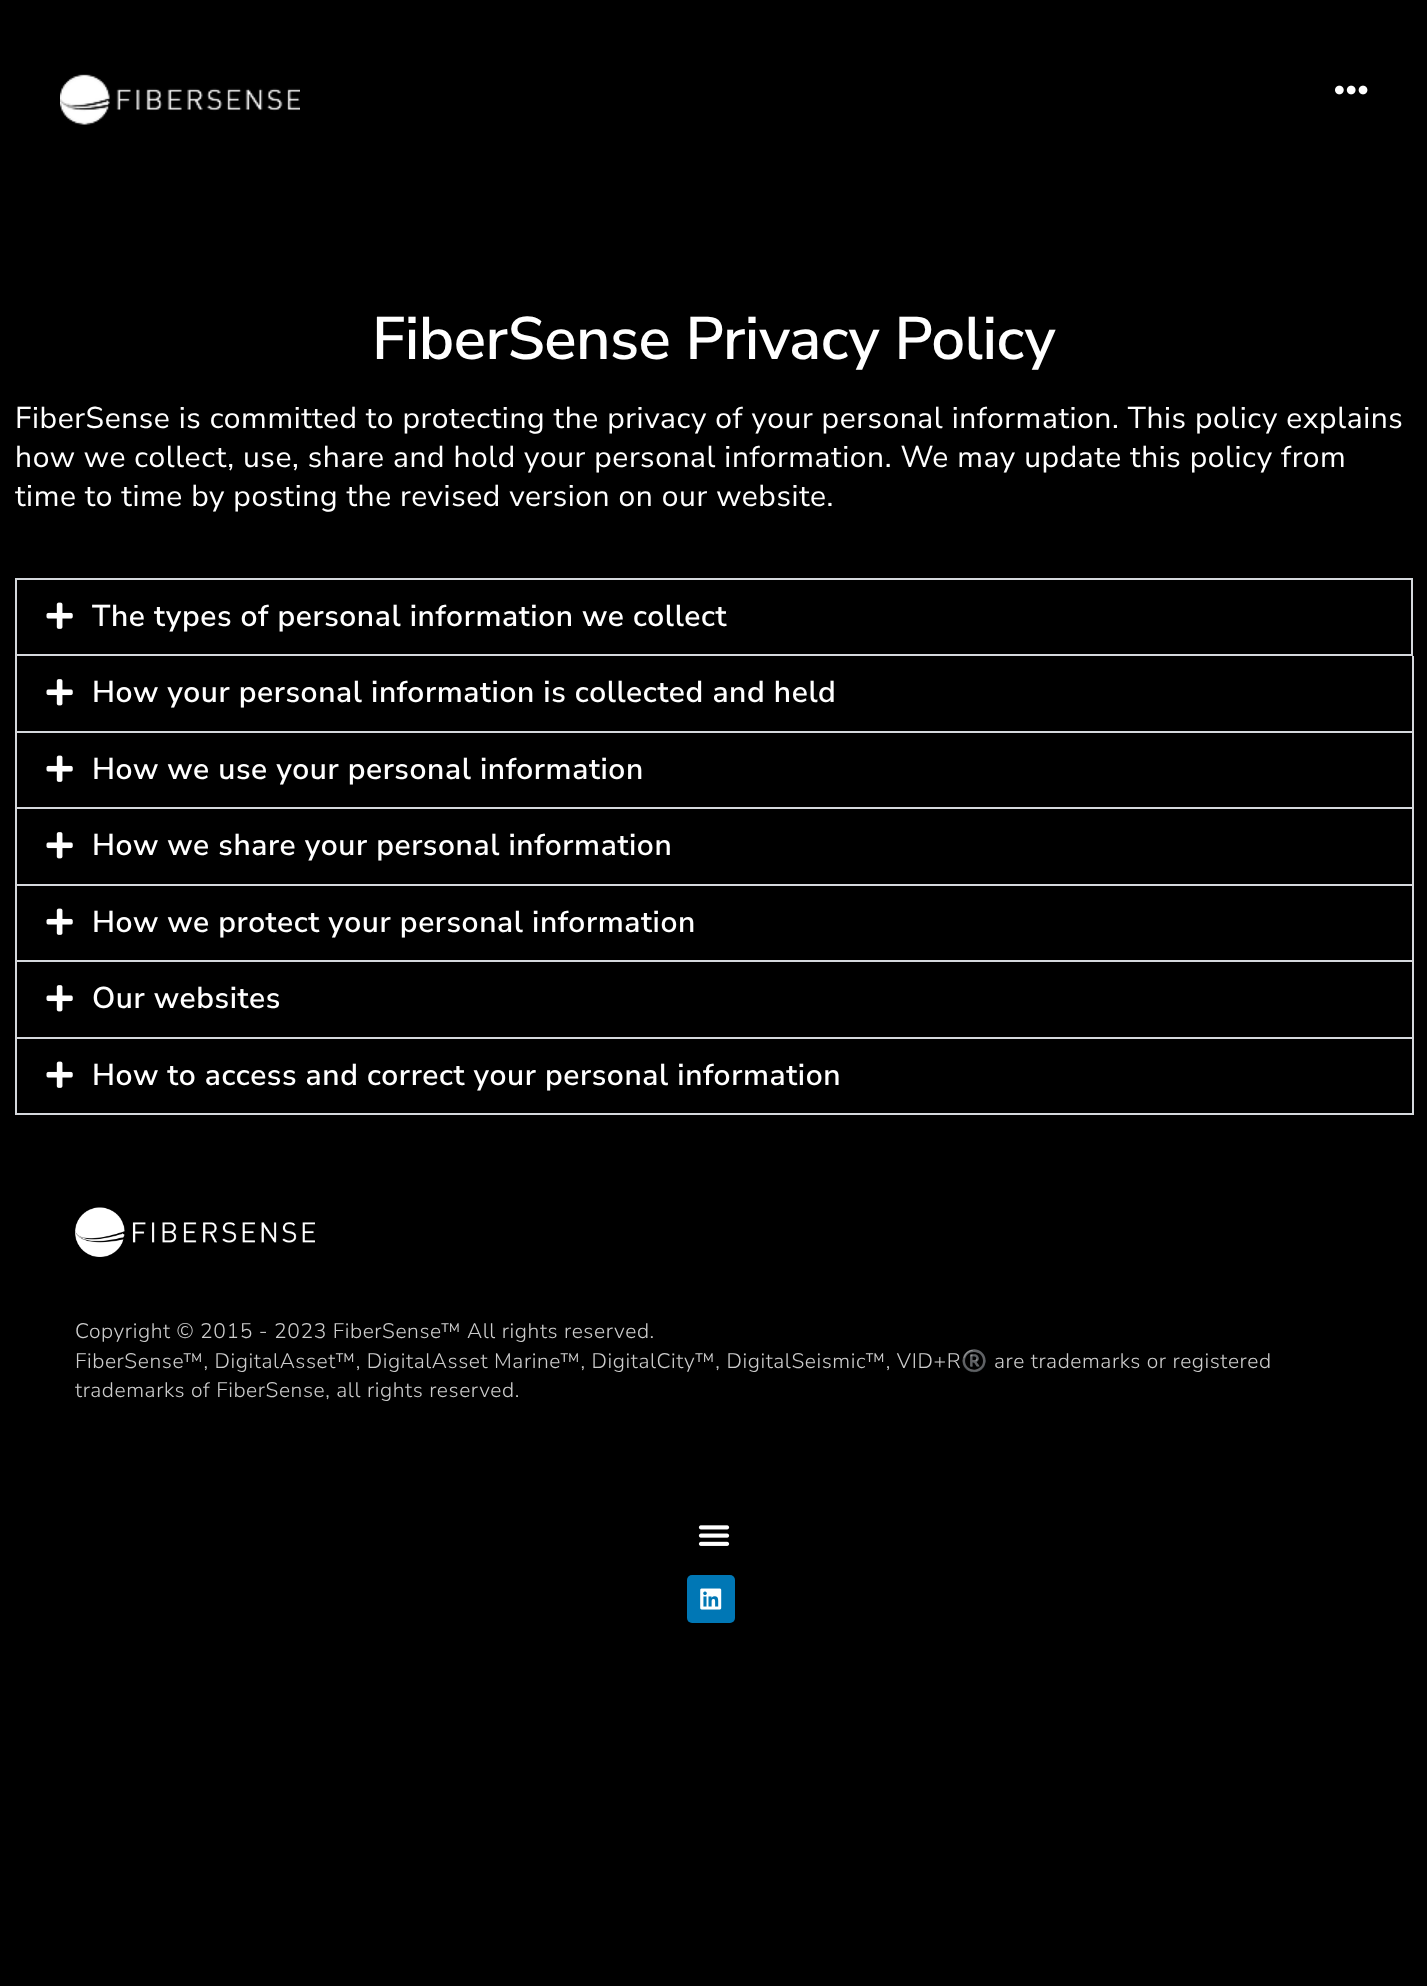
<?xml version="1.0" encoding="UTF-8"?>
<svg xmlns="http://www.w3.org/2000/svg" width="1427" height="1986">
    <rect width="100%" height="100%" fill="#000000"/>
    <image x="60" y="74" width="240" height="51" href="img_01.png"/>
    <image x="1335" y="85" width="33" height="10" href="img_02.png"/>
    <text x="372" y="359" font-family="Nunito Sans" font-size="60" font-weight="600" letter-spacing="-0.5" fill="#FFFFFF">FiberSense Privacy Policy</text>
    <text font-family="Nunito Sans" font-size="30" letter-spacing="0.6" fill="#FFFFFF">
        <tspan x="15" y="428">FiberSense is committed to protecting the privacy of your personal information. This policy explains</tspan>
        <tspan x="15" y="467">how we collect, use, share and hold your personal information. We may update this policy from</tspan>
        <tspan x="15" y="506">time to time by posting the revised version on our website.</tspan>
    </text>
    <rect x="16" y="579" width="1396" height="76" fill="none" stroke="#D5D8DC" stroke-width="2"/>
    <image x="46" y="602" width="27" height="27" href="img_03.png"/>
    <text x="92" y="626" font-family="Nunito Sans" font-size="30" font-weight="600" letter-spacing="0.6" fill="#FFFFFF">The types of personal information we collect</text>
    <rect x="1412" y="656" width="2" height="76" fill="#D5D8DC"/>
    <rect x="15" y="731" width="1398" height="2" fill="#D5D8DC"/>
    <rect x="15" y="656" width="2" height="76" fill="#D5D8DC"/>
    <image x="46" y="679" width="27" height="27" href="img_04.png"/>
    <text x="92" y="702" font-family="Nunito Sans" font-size="30" font-weight="600" letter-spacing="0.6" fill="#FFFFFF">How your personal information is collected and held</text>
    <rect x="1412" y="732" width="2" height="153" fill="#D5D8DC"/>
    <rect x="15" y="807" width="1398" height="2" fill="#D5D8DC"/>
    <rect x="15" y="732" width="2" height="77" fill="#D5D8DC"/>
    <image x="46" y="755" width="27" height="27" href="img_03.png"/>
    <text x="92" y="779" font-family="Nunito Sans" font-size="30" font-weight="600" letter-spacing="0.6" fill="#FFFFFF">How we use your personal information</text>
    <rect x="15" y="884" width="1398" height="2" fill="#D5D8DC"/>
    <rect x="15" y="809" width="2" height="76" fill="#D5D8DC"/>
    <image x="46" y="832" width="27" height="27" href="img_04.png"/>
    <text x="92" y="855" font-family="Nunito Sans" font-size="30" font-weight="600" letter-spacing="0.6" fill="#FFFFFF">How we share your personal information</text>
    <rect x="1412" y="885" width="2" height="153" fill="#D5D8DC"/>
    <rect x="15" y="960" width="1398" height="2" fill="#D5D8DC"/>
    <rect x="15" y="885" width="2" height="77" fill="#D5D8DC"/>
    <image x="46" y="908" width="27" height="27" href="img_03.png"/>
    <text x="92" y="932" font-family="Nunito Sans" font-size="30" font-weight="600" letter-spacing="0.6" fill="#FFFFFF">How we protect your personal information</text>
    <rect x="15" y="1037" width="1398" height="2" fill="#D5D8DC"/>
    <rect x="15" y="962" width="2" height="76" fill="#D5D8DC"/>
    <image x="46" y="985" width="27" height="27" href="img_04.png"/>
    <text x="92" y="1008" font-family="Nunito Sans" font-size="30" font-weight="600" letter-spacing="0.6" fill="#FFFFFF">Our websites</text>
    <rect x="1412" y="1038" width="2" height="77" fill="#D5D8DC"/>
    <rect x="15" y="1113" width="1398" height="2" fill="#D5D8DC"/>
    <rect x="15" y="1038" width="2" height="77" fill="#D5D8DC"/>
    <image x="46" y="1061" width="27" height="27" href="img_03.png"/>
    <text x="92" y="1085" font-family="Nunito Sans" font-size="30" font-weight="600" letter-spacing="0.6" fill="#FFFFFF">How to access and correct your personal information</text>
    <image x="75" y="1207" width="240" height="50" href="img_05.png"/>
    <text font-family="Nunito Sans" font-size="21" font-weight="300" letter-spacing="0.6" fill="#CCCCCC">
        <tspan x="75" y="1338">Copyright © 2015 - 2023 FiberSense™ All rights reserved.</tspan>
        <tspan x="75" y="1368">FiberSense™, DigitalAsset™, DigitalAsset Marine™, DigitalCity™, DigitalSeismic™, VID+R</tspan>
    </text>
    <text x="961" y="1368" font-family="Noto Color Emoji" font-size="21" letter-spacing="0.6" fill="#CCCCCC">®️</text>
    <text x="994" y="1368" font-family="Nunito Sans" font-size="21" font-weight="300" letter-spacing="0.6" fill="#CCCCCC">are trademarks or registered</text>
    <text x="75" y="1397" font-family="Nunito Sans" font-size="21" font-weight="300" letter-spacing="0.6" fill="#CCCCCC">trademarks of FiberSense, all rights reserved.</text>
    <image x="698" y="1525" width="32" height="21" href="img_06.png"/>
    <rect x="687" y="1575" width="48" height="48" rx="5" fill="#0077B5"/>
    <image x="700" y="1588" width="22" height="22" href="img_07.png"/>
</svg>
